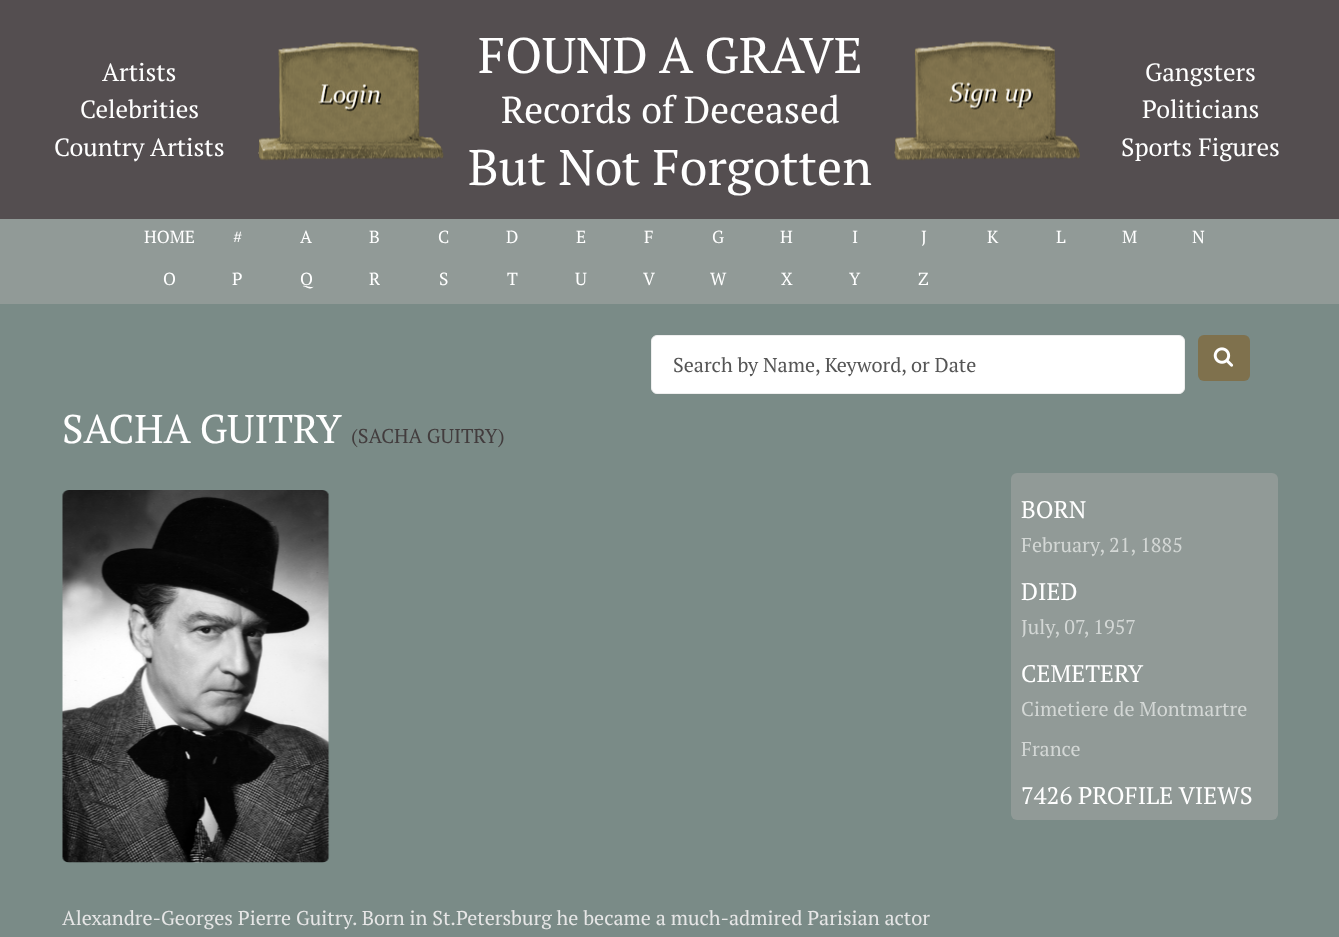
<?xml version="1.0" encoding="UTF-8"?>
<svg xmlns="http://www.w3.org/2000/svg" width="1339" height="937">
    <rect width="100%" height="100%" fill="#544E50"/>
    <text x="102" y="81" font-family="PT Serif" font-size="25" fill="#FFFFFF">Artists</text>
    <text x="80" y="118" font-family="PT Serif" font-size="25" fill="#FFFFFF">Celebrities</text>
    <text x="54" y="156" font-family="PT Serif" font-size="25" fill="#FFFFFF">Country Artists</text>
    <image x="258" y="42" width="186" height="119" href="img_01.png"/>
    <text x="478" y="73" font-family="PT Serif" font-size="50" fill="#FFFFFF">FOUND A GRAVE</text>
    <text x="501" y="123" font-family="PT Serif" font-size="37.5" fill="#FFFFFF">Records of Deceased</text>
    <text x="468" y="185" font-family="PT Serif" font-size="50" fill="#FFFFFF">But Not Forgotten</text>
    <image x="894" y="41" width="186" height="120" href="img_02.png"/>
    <text x="1145" y="81" font-family="PT Serif" font-size="25" fill="#FFFFFF">Gangsters</text>
    <text x="1142" y="118" font-family="PT Serif" font-size="25" fill="#FFFFFF">Politicians</text>
    <text x="1121" y="156" font-family="PT Serif" font-size="25" fill="#FFFFFF">Sports Figures</text>
    <rect x="0" y="219" width="1339" height="85" fill="#919A97"/>
    <text x="144" y="243" font-family="PT Serif" font-size="17.5" fill="#FFFFFF">HOME</text>
    <text x="233" y="243" font-family="PT Serif" font-size="17.5" fill="#FFFFFF">#</text>
    <text x="300" y="243" font-family="PT Serif" font-size="17.5" fill="#FFFFFF">A</text>
    <text x="369" y="243" font-family="PT Serif" font-size="17.5" fill="#FFFFFF">B</text>
    <text x="438" y="243" font-family="PT Serif" font-size="17.5" fill="#FFFFFF">C</text>
    <text x="506" y="243" font-family="PT Serif" font-size="17.5" fill="#FFFFFF">D</text>
    <text x="576" y="243" font-family="PT Serif" font-size="17.5" fill="#FFFFFF">E</text>
    <text x="644" y="243" font-family="PT Serif" font-size="17.5" fill="#FFFFFF">F</text>
    <text x="712" y="243" font-family="PT Serif" font-size="17.5" fill="#FFFFFF">G</text>
    <text x="780" y="243" font-family="PT Serif" font-size="17.5" fill="#FFFFFF">H</text>
    <text x="852" y="243" font-family="PT Serif" font-size="17.5" fill="#FFFFFF">I</text>
    <text x="921" y="243" font-family="PT Serif" font-size="17.5" fill="#FFFFFF">J</text>
    <text x="987" y="243" font-family="PT Serif" font-size="17.5" fill="#FFFFFF">K</text>
    <text x="1056" y="243" font-family="PT Serif" font-size="17.5" fill="#FFFFFF">L</text>
    <text x="1122" y="243" font-family="PT Serif" font-size="17.5" fill="#FFFFFF">M</text>
    <text x="1192" y="243" font-family="PT Serif" font-size="17.5" fill="#FFFFFF">N</text>
    <text x="163" y="285" font-family="PT Serif" font-size="17.5" fill="#FFFFFF">O</text>
    <text x="232" y="285" font-family="PT Serif" font-size="17.5" fill="#FFFFFF">P</text>
    <text x="300" y="285" font-family="PT Serif" font-size="17.5" fill="#FFFFFF">Q</text>
    <text x="369" y="285" font-family="PT Serif" font-size="17.5" fill="#FFFFFF">R</text>
    <text x="439" y="285" font-family="PT Serif" font-size="17.5" fill="#FFFFFF">S</text>
    <text x="507" y="285" font-family="PT Serif" font-size="17.5" fill="#FFFFFF">T</text>
    <text x="575" y="285" font-family="PT Serif" font-size="17.5" fill="#FFFFFF">U</text>
    <text x="643" y="285" font-family="PT Serif" font-size="17.5" fill="#FFFFFF">V</text>
    <text x="710" y="285" font-family="PT Serif" font-size="17.5" fill="#FFFFFF">W</text>
    <text x="781" y="285" font-family="PT Serif" font-size="17.5" fill="#FFFFFF">X</text>
    <text x="849" y="285" font-family="PT Serif" font-size="17.5" fill="#FFFFFF">Y</text>
    <text x="918" y="285" font-family="PT Serif" font-size="17.5" fill="#FFFFFF">Z</text>
    <rect x="0" y="304" width="1339" height="633" fill="#7A8B87"/>
    <rect x="651.5" y="335.5" width="533" height="58" rx="5.5" fill="#FFFFFF" stroke="#EEEEEE"/>
    <text x="673" y="372" font-family="PT Serif" font-size="20" fill="#555555">Search by Name, Keyword, or Date</text>
    <rect x="1198" y="335" width="52" height="46" rx="6" fill="#7F714D"/>
    <image x="1213" y="347" width="21" height="20" href="img_03.png"/>
    <text x="62" y="443" font-family="PT Serif" font-size="40" fill="#FFFFFF">SACHA GUITRY</text>
    <text x="351" y="443" font-family="PT Serif" font-size="20" fill="#423C3D">(SACHA GUITRY)</text>
    <image x="62" y="490" width="268" height="373" href="img_04.png"/>
    <text x="62" y="925" font-family="PT Serif" font-size="20" fill="#E6E6E6">Alexandre-Georges Pierre Guitry. Born in St.Petersburg he became a much-admired Parisian actor</text>
    <rect x="1011" y="473" width="267" height="347" rx="6" fill="#919A97"/>
    <text x="1021" y="518" font-family="PT Serif" font-size="24" fill="#FFFFFF">BORN</text>
    <text x="1021" y="552" font-family="PT Serif" font-size="20" fill="#D3D7D5">February, 21, 1885</text>
    <text x="1021" y="600" font-family="PT Serif" font-size="24" fill="#FFFFFF">DIED</text>
    <text x="1021" y="634" font-family="PT Serif" font-size="20" fill="#D3D7D5">July, 07, 1957</text>
    <text x="1021" y="682" font-family="PT Serif" font-size="24" fill="#FFFFFF">CEMETERY</text>
    <text x="1021" y="716" font-family="PT Serif" font-size="20" fill="#D3D7D5">Cimetiere de Montmartre</text>
    <text x="1021" y="756" font-family="PT Serif" font-size="20" fill="#D3D7D5">France</text>
    <text x="1021" y="804" font-family="PT Serif" font-size="24" fill="#FFFFFF">7426 PROFILE VIEWS</text>
</svg>
